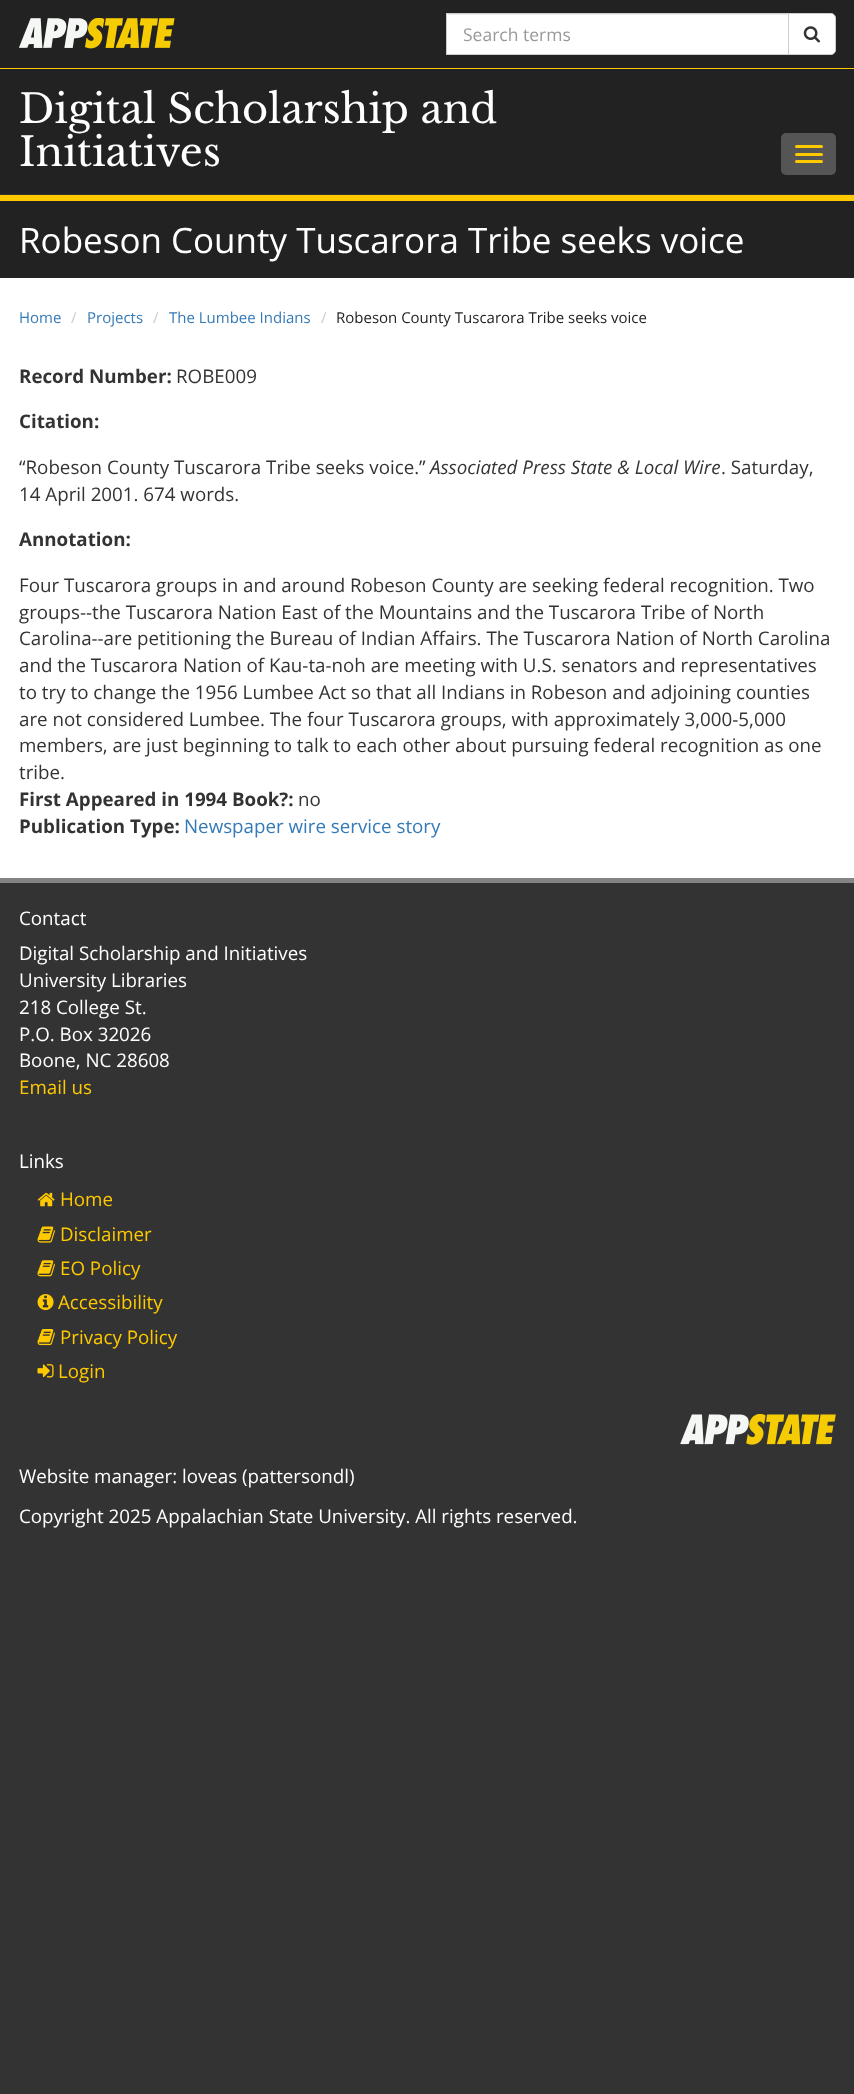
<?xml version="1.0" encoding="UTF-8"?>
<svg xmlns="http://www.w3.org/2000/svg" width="854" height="2094">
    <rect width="100%" height="100%" fill="#333333"/>
    <rect x="0" y="0" width="854" height="68" fill="#222222"/>
    <rect x="0" y="68" width="854" height="1" fill="#FFC900"/>
    <image x="19" y="18" width="156" height="31" href="img_01.png"/>
    <rect x="447" y="14" width="341" height="40" fill="#FFFFFF"/>
    <rect x="448" y="14" width="340" height="1" fill="#ECECEC"/>
    <rect x="446.5" y="13.5" width="342" height="41" fill="none" stroke="#CCCCCC"/>
    <text x="463" y="41" font-family="Open Sans" font-size="17.5" fill="#999999">Search terms</text>
    <path d="M 788.5 13.5 H 831 C 833.5 13.5 835.5 15.5 835.5 18 V 50 C 835.5 52.5 833.5 54.5 831 54.5 H 788.5 Z" fill="#FFFFFF" stroke="#CCCCCC"/>
    <image x="803" y="26" width="17" height="17" href="img_02.png"/>
    <rect x="0" y="69" width="854" height="125" fill="#222222"/>
    <text font-family="Libre Baskerville" font-size="40" fill="#FFFFFF">
        <tspan x="19" y="123">Digital Scholarship and</tspan>
        <tspan x="19" y="166">Initiatives</tspan>
    </text>
    <rect x="781" y="133" width="55" height="42" rx="5" fill="#555555"/>
    <rect x="795" y="145" width="28" height="3" rx="1.5" fill="#FFC900"/>
    <rect x="795" y="153" width="28" height="3" rx="1.5" fill="#FFC900"/>
    <rect x="795" y="160" width="28" height="3" rx="1.5" fill="#FFC900"/>
    <rect x="0" y="201" width="854" height="77" fill="#222222"/>
    <rect x="0" y="195" width="854" height="6" fill="#FFC900"/>
    <text x="19" y="253" font-family="Open Sans" font-size="35" fill="#FFFFFF">Robeson County Tuscarora Tribe seeks voice</text>
    <rect x="0" y="278" width="854" height="600" fill="#FFFFFF"/>
    <text x="19" y="323" font-family="Open Sans" font-size="15" fill="#347AB7">Home</text>
    <text x="71" y="323" font-family="Open Sans" font-size="15" fill="#CCCCCC">/</text>
    <text x="87" y="323" font-family="Open Sans" font-size="15" fill="#347AB7">Projects</text>
    <text x="153" y="323" font-family="Open Sans" font-size="15" fill="#CCCCCC">/</text>
    <text x="169" y="323" font-family="Open Sans" font-size="15" fill="#347AB7">The Lumbee Indians</text>
    <text x="321" y="323" font-family="Open Sans" font-size="15" fill="#CCCCCC">/</text>
    <text x="336" y="323" font-family="Open Sans" font-size="15" fill="#222222">Robeson County Tuscarora Tribe seeks voice</text>
    <text x="19" y="383" font-family="Open Sans" font-size="18.75" font-weight="700" fill="#333333">Record Number:</text>
    <text x="176" y="383" font-family="Open Sans" font-size="18.75" fill="#333333">ROBE009</text>
    <text x="19" y="428" font-family="Open Sans" font-size="18.75" font-weight="700" fill="#333333">Citation:</text>
    <text x="19" y="474" font-family="Open Sans" font-size="18.75" fill="#333333">“Robeson County Tuscarora Tribe seeks voice.”</text>
    <text x="430" y="474" font-family="Open Sans" font-size="18.75" font-style="italic" fill="#333333">Associated Press State &amp; Local Wire</text>
    <text x="721" y="474" font-family="Open Sans" font-size="18.75" fill="#333333">. Saturday,</text>
    <text x="19" y="501" font-family="Open Sans" font-size="18.75" fill="#333333">14 April 2001. 674 words.</text>
    <text x="19" y="546" font-family="Open Sans" font-size="18.75" font-weight="700" fill="#333333">Annotation:</text>
    <text font-family="Open Sans" font-size="18.75" fill="#333333">
        <tspan x="19" y="592">Four Tuscarora groups in and around Robeson County are seeking federal recognition. Two</tspan>
        <tspan x="19" y="619">groups--the Tuscarora Nation East of the Mountains and the Tuscarora Tribe of North</tspan>
        <tspan x="19" y="645">Carolina--are petitioning the Bureau of Indian Affairs. The Tuscarora Nation of North Carolina</tspan>
        <tspan x="19" y="672">and the Tuscarora Nation of Kau-ta-noh are meeting with U.S. senators and representatives</tspan>
        <tspan x="19" y="699">to try to change the 1956 Lumbee Act so that all Indians in Robeson and adjoining counties</tspan>
        <tspan x="19" y="726">are not considered Lumbee. The four Tuscarora groups, with approximately 3,000-5,000</tspan>
        <tspan x="19" y="752">members, are just beginning to talk to each other about pursuing federal recognition as one</tspan>
        <tspan x="19" y="779">tribe.</tspan>
    </text>
    <text x="19" y="806" font-family="Open Sans" font-size="18.75" font-weight="700" fill="#333333">First Appeared in 1994 Book?:</text>
    <text x="298" y="806" font-family="Open Sans" font-size="18.75" fill="#333333">no</text>
    <text x="19" y="833" font-family="Open Sans" font-size="18.75" font-weight="700" fill="#333333">Publication Type:</text>
    <text x="184" y="833" font-family="Open Sans" font-size="18.75" fill="#347AB7">Newspaper wire service story</text>
    <rect x="0" y="878" width="854" height="5" fill="#848484"/>
    <text font-family="Open Sans" font-size="18.75" fill="#FFFFFF">
        <tspan x="19" y="925">Contact</tspan>
        <tspan x="19" y="960">Digital Scholarship and Initiatives</tspan>
        <tspan x="19" y="987">University Libraries</tspan>
        <tspan x="19" y="1014">218 College St.</tspan>
        <tspan x="19" y="1041">P.O. Box 32026</tspan>
        <tspan x="19" y="1067">Boone, NC 28608</tspan>
    </text>
    <text x="19" y="1094" font-family="Open Sans" font-size="18.75" fill="#FFC900">Email us</text>
    <text x="19" y="1168" font-family="Open Sans" font-size="18.75" fill="#FFFFFF">Links</text>
    <image x="37" y="1192" width="18" height="15" href="img_03.png"/>
    <text x="60" y="1206" font-family="Open Sans" font-size="18.75" fill="#FFC900">Home</text>
    <image x="37" y="1226" width="18" height="17" href="img_04.png"/>
    <text x="60" y="1241" font-family="Open Sans" font-size="18.75" fill="#FFC900">Disclaimer</text>
    <image x="37" y="1260" width="18" height="17" href="img_05.png"/>
    <text x="60" y="1275" font-family="Open Sans" font-size="18.75" fill="#FFC900">EO Policy</text>
    <image x="37" y="1294" width="17" height="17" href="img_06.png"/>
    <text x="58" y="1309" font-family="Open Sans" font-size="18.75" fill="#FFC900">Accessibility</text>
    <image x="37" y="1329" width="18" height="17" href="img_07.png"/>
    <text x="60" y="1344" font-family="Open Sans" font-size="18.75" fill="#FFC900">Privacy Policy</text>
    <image x="37" y="1364" width="17" height="14" href="img_08.png"/>
    <text x="58" y="1378" font-family="Open Sans" font-size="18.75" fill="#FFC900">Login</text>
    <image x="680" y="1414" width="156" height="31" href="img_09.png"/>
    <text x="19" y="1483" font-family="Open Sans" font-size="18.75" fill="#FFFFFF">Website manager: loveas (pattersondl)</text>
    <text x="19" y="1523" font-family="Open Sans" font-size="18.75" fill="#FFFFFF">Copyright 2025 Appalachian State University. All rights reserved.</text>
</svg>
